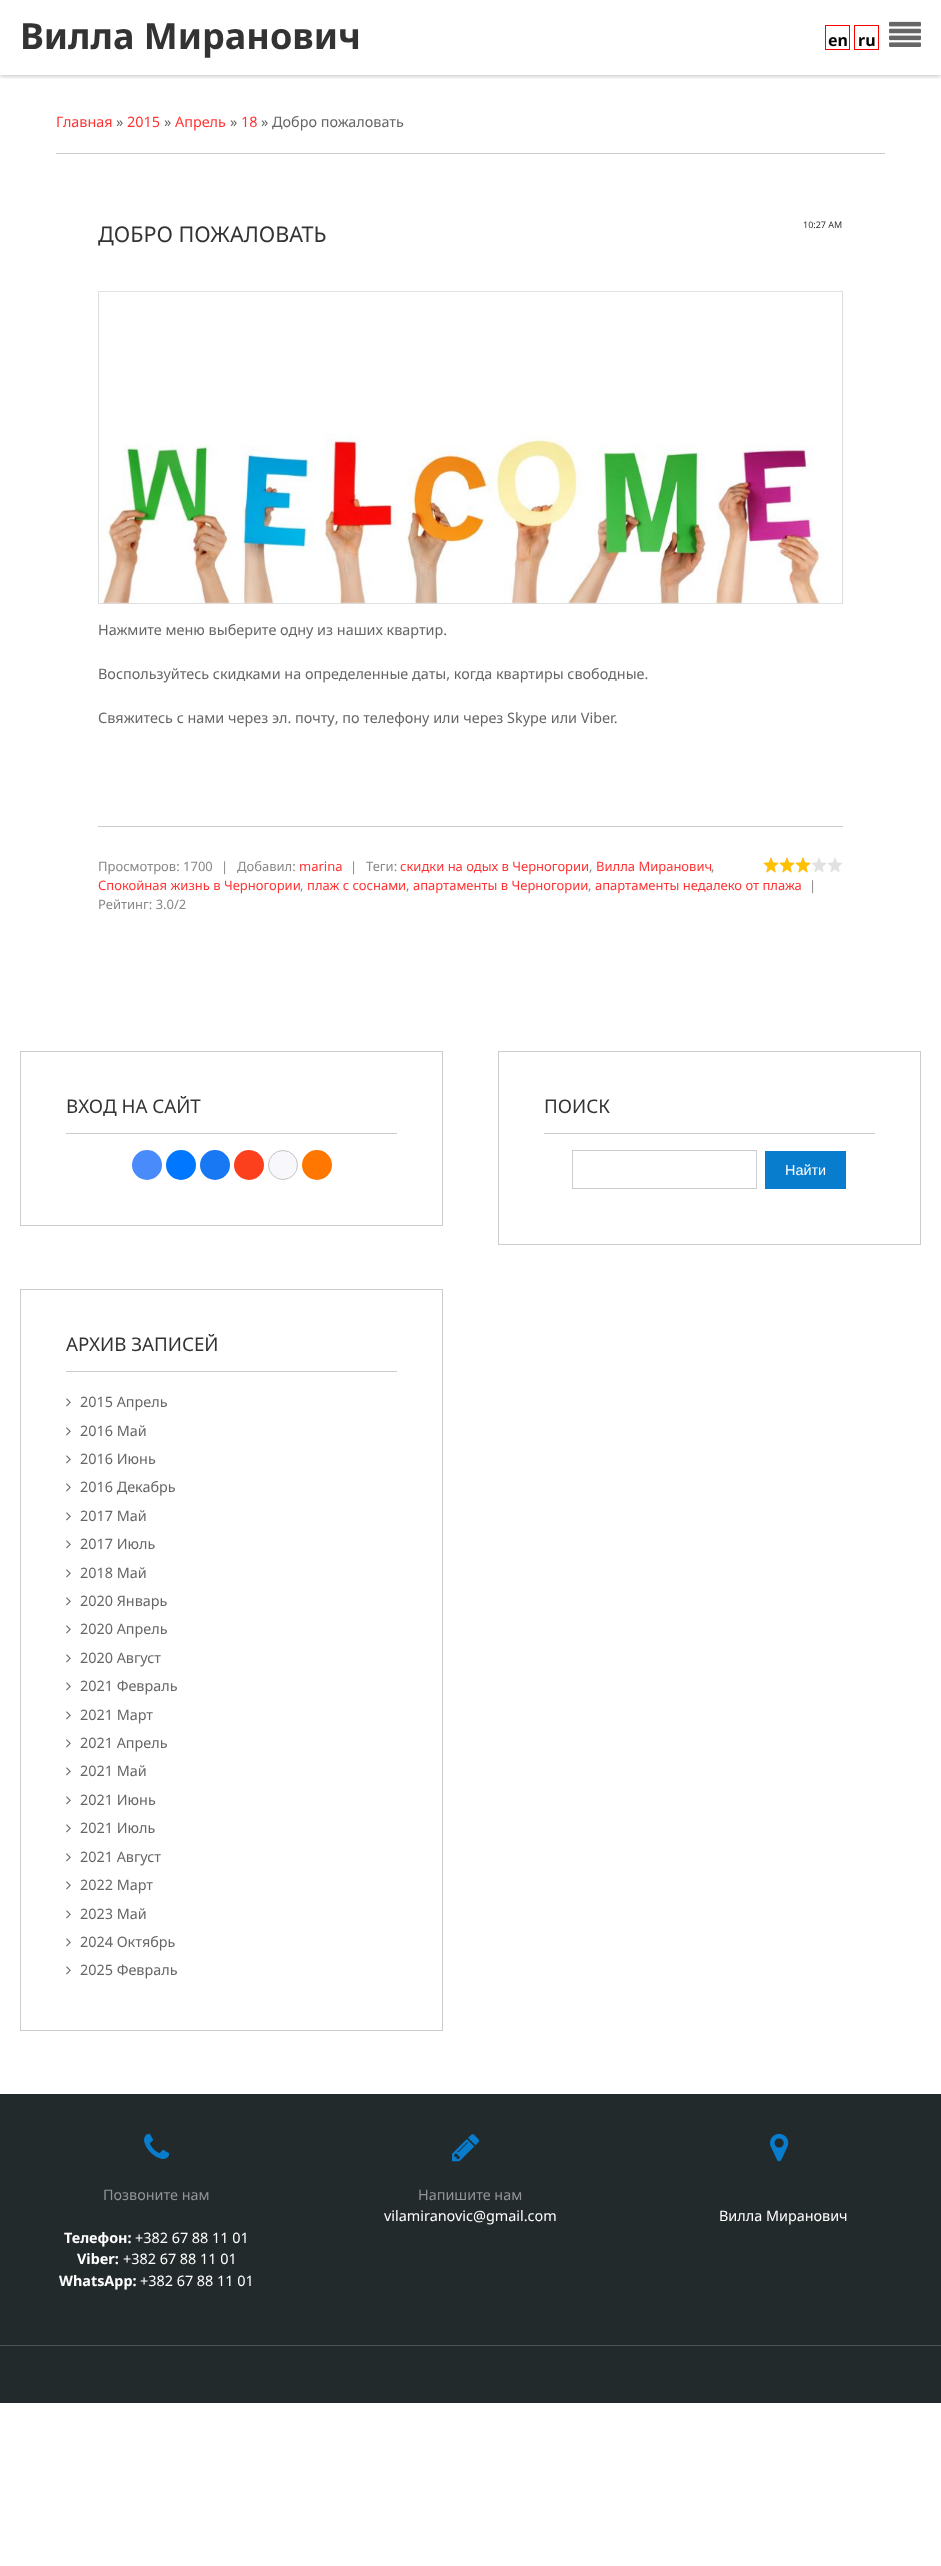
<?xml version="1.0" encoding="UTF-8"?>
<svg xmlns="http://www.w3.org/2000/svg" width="941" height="2566">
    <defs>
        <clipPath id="clip1"><rect x="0" y="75" width="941" height="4"/></clipPath>
        <filter id="blur1" x="-50%" y="-200%" width="200%" height="500%"><feGaussianBlur stdDeviation="2.5"/></filter>
    </defs>
    <rect width="100%" height="100%" fill="#FFFFFF"/>
    <g clip-path="url(#clip1)">
        <rect x="0" y="1" width="941" height="75" fill="#000000" fill-opacity="0.25" filter="url(#blur1)"/>
    </g>
    <text x="20" y="49" font-family="Noto Sans" font-size="36" font-weight="700" fill="#333333">Вилла Миранович</text>
    <rect x="825.5" y="25.5" width="24" height="24" fill="none" stroke="#FF0000"/>
    <text x="828" y="46" font-family="Noto Sans" font-size="16" font-weight="700" fill="#060300">en</text>
    <rect x="854.5" y="25.5" width="24" height="24" fill="none" stroke="#FF0000"/>
    <text x="858" y="46" font-family="Noto Sans" font-size="16" font-weight="700" fill="#060300">ru</text>
    <image x="889" y="21" width="32" height="26" href="img_01.png"/>
    <text x="56" y="127" font-family="Noto Sans" font-size="14.4" fill="#FF3333">Главная</text>
    <text x="116" y="127" font-family="Noto Sans" font-size="14.4" fill="#666666">»</text>
    <text x="127" y="127" font-family="Noto Sans" font-size="14.4" fill="#FF3333">2015</text>
    <text x="164" y="127" font-family="Noto Sans" font-size="14.4" fill="#666666">»</text>
    <text x="175" y="127" font-family="Noto Sans" font-size="14.4" fill="#FF3333">Апрель</text>
    <text x="230" y="127" font-family="Noto Sans" font-size="14.4" fill="#666666">»</text>
    <text x="241" y="127" font-family="Noto Sans" font-size="14.4" fill="#FF3333">18</text>
    <text x="261" y="127" font-family="Noto Sans" font-size="14.4" fill="#666666">» Добро пожаловать</text>
    <rect x="56" y="153" width="829" height="1" fill="#CCCCCC"/>
    <text x="803" y="228" font-family="Noto Sans" font-size="9" fill="#333333">10:27 AM</text>
    <text x="98" y="242" font-family="Noto Sans" font-size="21.6" fill="#333333">ДОБРО ПОЖАЛОВАТЬ</text>
    <rect x="98.5" y="291.5" width="744" height="312" fill="none" stroke="#DDDDDD"/>
    <image x="99" y="291" width="743" height="313" href="img_02.png"/>
    <text x="98" y="635" font-family="Noto Sans" font-size="14.4" fill="#666666">Нажмите меню выберите одну из наших квартир.</text>
    <text x="98" y="679" font-family="Noto Sans" font-size="14.4" fill="#666666">Воспользуйтесь скидками на определенные даты, когда квартиры свободные.</text>
    <text x="98" y="723" font-family="Noto Sans" font-size="14.4" fill="#666666">Свяжитесь с нами через эл. почту, по телефону или через Skype или Viber.</text>
    <rect x="98" y="826" width="745" height="1" fill="#CCCCCC"/>
    <text x="98" y="871" font-family="Noto Sans" font-size="13" fill="#888888">Просмотров: 1700</text>
    <text x="221" y="871" font-family="Noto Sans" font-size="13" fill="#888888">|</text>
    <text x="237" y="871" font-family="Noto Sans" font-size="13" fill="#888888">Добавил:</text>
    <text x="299" y="871" font-family="Noto Sans" font-size="13" fill="#FF3333">marina</text>
    <text x="350" y="871" font-family="Noto Sans" font-size="13" fill="#888888">|</text>
    <text x="366" y="871" font-family="Noto Sans" font-size="13" fill="#888888">Теги:</text>
    <text x="400" y="871" font-family="Noto Sans" font-size="13" fill="#FF3333">скидки на одых в Черногории</text>
    <text x="589" y="871" font-family="Noto Sans" font-size="13" fill="#888888">,</text>
    <text x="596" y="871" font-family="Noto Sans" font-size="13" fill="#FF3333">Вилла Миранович</text>
    <text x="711" y="871" font-family="Noto Sans" font-size="13" fill="#888888">,</text>
    <image x="763" y="857" width="80" height="16" href="img_03.png"/>
    <image x="763" y="857" width="48" height="16" href="img_04.png"/>
    <text x="98" y="890" font-family="Noto Sans" font-size="13" fill="#FF3333">Спокойная жизнь в Черногории</text>
    <text x="300" y="890" font-family="Noto Sans" font-size="13" fill="#888888">,</text>
    <text x="307" y="890" font-family="Noto Sans" font-size="13" fill="#FF3333">плаж с соснами</text>
    <text x="406" y="890" font-family="Noto Sans" font-size="13" fill="#888888">,</text>
    <text x="413" y="890" font-family="Noto Sans" font-size="13" fill="#FF3333">апартаменты в Черногории</text>
    <text x="588" y="890" font-family="Noto Sans" font-size="13" fill="#888888">,</text>
    <text x="595" y="890" font-family="Noto Sans" font-size="13" fill="#FF3333">апартаменты недалеко от плажа</text>
    <text x="809" y="890" font-family="Noto Sans" font-size="13" fill="#888888">|</text>
    <text x="98" y="909" font-family="Noto Sans" font-size="13" fill="#888888">Рейтинг: 3.0/2</text>
    <rect x="20.5" y="1051.5" width="422" height="174" fill="none" stroke="#CCCCCC"/>
    <rect x="66" y="1133" width="331" height="1" fill="#CCCCCC"/>
    <text x="66" y="1113" font-family="Noto Sans" font-size="18.75" fill="#333333">ВХОД НА САЙТ</text>
    <circle cx="147" cy="1165" r="15" fill="#498BFA"/>
    <circle cx="181" cy="1165" r="15" fill="#0077FF"/>
    <circle cx="215" cy="1165" r="15" fill="#1877F2"/>
    <circle cx="249" cy="1165" r="15" fill="#FC3F1D"/>
    <circle cx="283" cy="1165" r="14.5" fill="#F8F8FC" stroke="#C4C4C4"/>
    <circle cx="317" cy="1165" r="15" fill="#FF7700"/>
    <rect x="498.5" y="1051.5" width="422" height="193" fill="none" stroke="#CCCCCC"/>
    <rect x="544" y="1133" width="331" height="1" fill="#CCCCCC"/>
    <text x="544" y="1113" font-family="Noto Sans" font-size="18.75" fill="#333333">ПОИСК</text>
    <rect x="572.5" y="1150.5" width="184" height="38" fill="none" stroke="#CCCCCC"/>
    <rect x="765" y="1151" width="81" height="38" fill="#087CCD"/>
    <text x="785" y="1175" font-family="Liberation Sans" font-size="14.4" fill="#FFFFFF">Найти</text>
    <rect x="20.5" y="1289.5" width="422" height="741" fill="none" stroke="#CCCCCC"/>
    <rect x="66" y="1371" width="331" height="1" fill="#CCCCCC"/>
    <text x="66" y="1351" font-family="Noto Sans" font-size="18.75" fill="#333333">АРХИВ ЗАПИСЕЙ</text>
    <image x="66" y="1398" width="5" height="9" href="img_05.png"/>
    <text x="80" y="1407" font-family="Noto Sans" font-size="14.4" fill="#666666">2015 Апрель</text>
    <image x="66" y="1427" width="5" height="9" href="img_05.png"/>
    <text x="80" y="1436" font-family="Noto Sans" font-size="14.4" fill="#666666">2016 Май</text>
    <image x="66" y="1455" width="5" height="9" href="img_05.png"/>
    <text x="80" y="1464" font-family="Noto Sans" font-size="14.4" fill="#666666">2016 Июнь</text>
    <image x="66" y="1483" width="5" height="9" href="img_05.png"/>
    <text x="80" y="1492" font-family="Noto Sans" font-size="14.4" fill="#666666">2016 Декабрь</text>
    <image x="66" y="1512" width="5" height="9" href="img_05.png"/>
    <text x="80" y="1521" font-family="Noto Sans" font-size="14.4" fill="#666666">2017 Май</text>
    <image x="66" y="1540" width="5" height="9" href="img_05.png"/>
    <text x="80" y="1549" font-family="Noto Sans" font-size="14.4" fill="#666666">2017 Июль</text>
    <image x="66" y="1569" width="5" height="9" href="img_05.png"/>
    <text x="80" y="1578" font-family="Noto Sans" font-size="14.4" fill="#666666">2018 Май</text>
    <image x="66" y="1597" width="5" height="9" href="img_05.png"/>
    <text x="80" y="1606" font-family="Noto Sans" font-size="14.4" fill="#666666">2020 Январь</text>
    <image x="66" y="1625" width="5" height="9" href="img_05.png"/>
    <text x="80" y="1634" font-family="Noto Sans" font-size="14.4" fill="#666666">2020 Апрель</text>
    <image x="66" y="1654" width="5" height="9" href="img_05.png"/>
    <text x="80" y="1663" font-family="Noto Sans" font-size="14.4" fill="#666666">2020 Август</text>
    <image x="66" y="1682" width="5" height="9" href="img_05.png"/>
    <text x="80" y="1691" font-family="Noto Sans" font-size="14.4" fill="#666666">2021 Февраль</text>
    <image x="66" y="1711" width="5" height="9" href="img_05.png"/>
    <text x="80" y="1720" font-family="Noto Sans" font-size="14.4" fill="#666666">2021 Март</text>
    <image x="66" y="1739" width="5" height="9" href="img_05.png"/>
    <text x="80" y="1748" font-family="Noto Sans" font-size="14.4" fill="#666666">2021 Апрель</text>
    <image x="66" y="1767" width="5" height="9" href="img_05.png"/>
    <text x="80" y="1776" font-family="Noto Sans" font-size="14.4" fill="#666666">2021 Май</text>
    <image x="66" y="1796" width="5" height="9" href="img_05.png"/>
    <text x="80" y="1805" font-family="Noto Sans" font-size="14.4" fill="#666666">2021 Июнь</text>
    <image x="66" y="1824" width="5" height="9" href="img_05.png"/>
    <text x="80" y="1833" font-family="Noto Sans" font-size="14.4" fill="#666666">2021 Июль</text>
    <image x="66" y="1853" width="5" height="9" href="img_05.png"/>
    <text x="80" y="1862" font-family="Noto Sans" font-size="14.4" fill="#666666">2021 Август</text>
    <image x="66" y="1881" width="5" height="9" href="img_05.png"/>
    <text x="80" y="1890" font-family="Noto Sans" font-size="14.4" fill="#666666">2022 Март</text>
    <image x="66" y="1910" width="5" height="9" href="img_05.png"/>
    <text x="80" y="1919" font-family="Noto Sans" font-size="14.4" fill="#666666">2023 Май</text>
    <image x="66" y="1938" width="5" height="9" href="img_05.png"/>
    <text x="80" y="1947" font-family="Noto Sans" font-size="14.4" fill="#666666">2024 Октябрь</text>
    <image x="66" y="1966" width="5" height="9" href="img_05.png"/>
    <text x="80" y="1975" font-family="Noto Sans" font-size="14.4" fill="#666666">2025 Февраль</text>
    <rect x="0" y="2094" width="941" height="251" fill="#232A2C"/>
    <rect x="0" y="2345" width="941" height="1" fill="#4F5556"/>
    <image x="144" y="2133" width="26" height="26" href="img_06.png"/>
    <text x="103" y="2200" font-family="Noto Sans" font-size="14.4" fill="#919596">Позвоните нам</text>
    <text x="64" y="2243" font-family="Noto Sans" font-size="14.4" font-weight="700" fill="#FFFFFF">Телефон:</text>
    <text x="135" y="2243" font-family="Noto Sans" font-size="14.4" fill="#FFFFFF">+382 67 88 11 01</text>
    <text x="77" y="2264" font-family="Noto Sans" font-size="14.4" font-weight="700" fill="#FFFFFF">Viber:</text>
    <text x="123" y="2264" font-family="Noto Sans" font-size="14.4" fill="#FFFFFF">+382 67 88 11 01</text>
    <text x="59" y="2286" font-family="Noto Sans" font-size="14.4" font-weight="700" fill="#FFFFFF">WhatsApp:</text>
    <text x="140" y="2286" font-family="Noto Sans" font-size="14.4" fill="#FFFFFF">+382 67 88 11 01</text>
    <image x="452" y="2134" width="27" height="28" href="img_07.png"/>
    <text x="418" y="2200" font-family="Noto Sans" font-size="14.4" fill="#919596">Напишите нам</text>
    <text x="384" y="2221" font-family="Noto Sans" font-size="14.4" fill="#FFFFFF">vilamiranovic@gmail.com</text>
    <image x="770" y="2133" width="19" height="29" href="img_08.png"/>
    <text x="719" y="2221" font-family="Noto Sans" font-size="14.4" fill="#FFFFFF">Вилла Миранович</text>
    <rect x="0" y="2346" width="941" height="57" fill="#232A2C"/>
</svg>
